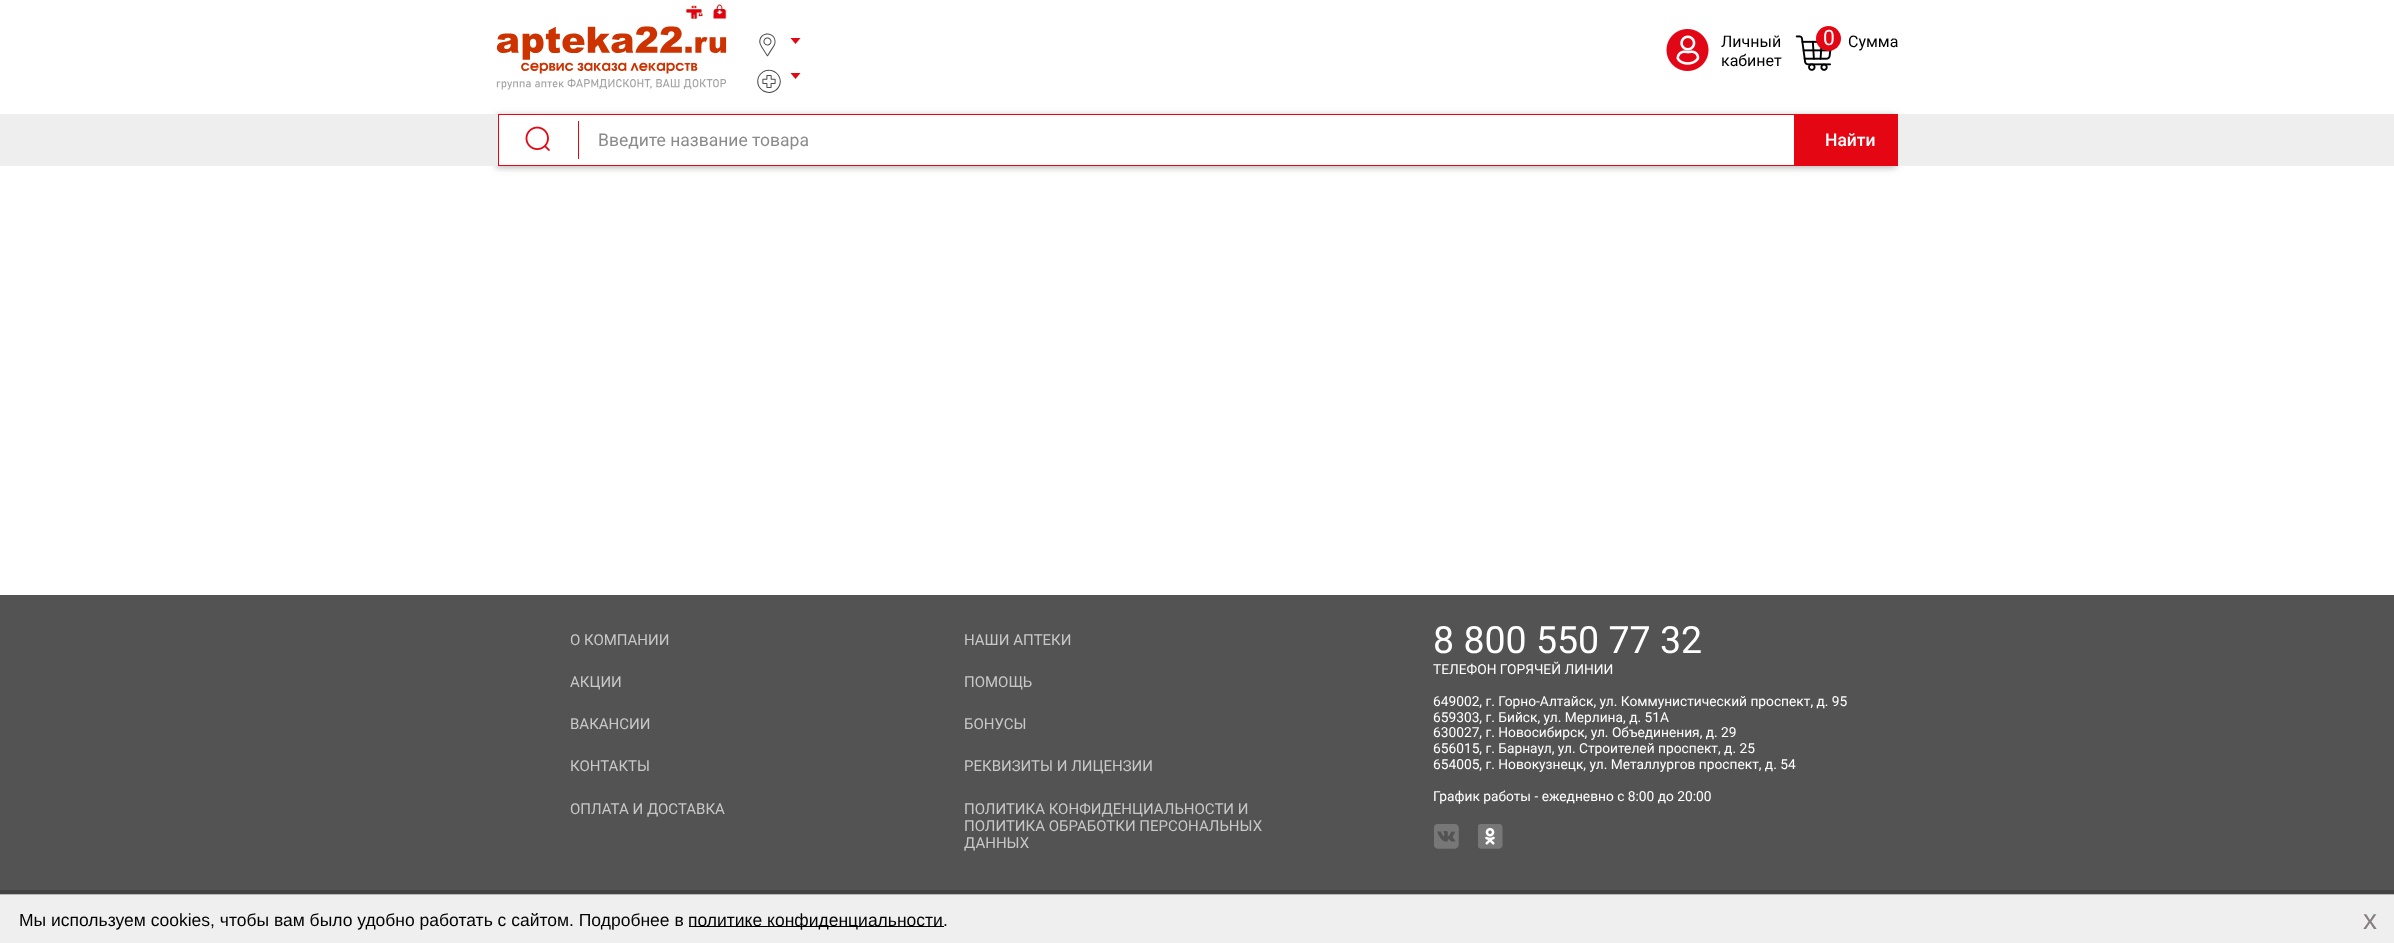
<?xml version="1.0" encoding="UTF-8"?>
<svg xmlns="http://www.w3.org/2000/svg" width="2394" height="943">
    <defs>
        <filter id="blur1" x="-50%" y="-200%" width="200%" height="500%"><feGaussianBlur stdDeviation="3"/></filter>
    </defs>
    <rect width="100%" height="100%" fill="#FFFFFF"/>
    <image x="685" y="5" width="18" height="14" href="img_01.png"/>
    <image x="713" y="4" width="14" height="15" href="img_02.png"/>
    <image x="496" y="26" width="231" height="64" href="img_03.png"/>
    <image x="759" y="33" width="17" height="24" href="img_04.png"/>
    <path d="M 790.5 38 L 795.5 44 L 800.5 38 Z" fill="#E40613"/>
    <image x="757" y="69" width="24" height="24" href="img_05.png"/>
    <path d="M 790.5 73 L 795.5 79 L 800.5 73 Z" fill="#E40613"/>
    <image x="1666" y="29" width="43" height="42" href="img_06.png"/>
    <text font-family="Roboto" font-size="16" fill="#000000">
        <tspan x="1721" y="47">Личный</tspan>
        <tspan x="1721" y="66">кабинет</tspan>
    </text>
    <image x="1795" y="35" width="37" height="36" href="img_07.png"/>
    <circle cx="1828.5" cy="38.5" r="12.5" fill="#E40613"/>
    <text x="1823" y="45" font-family="Roboto" font-size="21" fill="#FFFFFF">0</text>
    <text x="1848" y="47" font-family="Roboto" font-size="16" fill="#000000">Сумма</text>
    <rect x="496" y="115" width="1400" height="53" fill="#7A7A7A" fill-opacity="0.5" filter="url(#blur1)"/>
    <rect x="0" y="114" width="2394" height="52" fill="#EEEEEE"/>
    <rect x="499" y="115" width="1295" height="50" fill="#FFFFFF"/>
    <rect x="498" y="114" width="1400" height="1" fill="#E40613"/>
    <rect x="498" y="165" width="1400" height="1" fill="#E40613"/>
    <rect x="498" y="114" width="1" height="52" fill="#E40613"/>
    <rect x="578" y="121" width="1" height="38" fill="#E40613"/>
    <image x="525" y="126" width="25" height="25" href="img_08.png"/>
    <text x="598" y="146" font-family="Roboto" font-size="17.5" fill="#8B8A8A">Введите название товара</text>
    <rect x="1794" y="115" width="104" height="50" fill="#E40613"/>
    <text x="1825" y="146" font-family="Roboto" font-size="17.5" font-weight="500" fill="#FFFFFF">Найти</text>
    <rect x="0" y="595" width="2394" height="295" fill="#535353"/>
    <text x="570" y="645" font-family="Roboto" font-size="15" fill="#C8C8C8">О КОМПАНИИ</text>
    <text x="964" y="645" font-family="Roboto" font-size="15" fill="#C8C8C8">НАШИ АПТЕКИ</text>
    <text x="570" y="687" font-family="Roboto" font-size="15" fill="#C8C8C8">АКЦИИ</text>
    <text x="964" y="687" font-family="Roboto" font-size="15" fill="#C8C8C8">ПОМОЩЬ</text>
    <text x="570" y="729" font-family="Roboto" font-size="15" fill="#C8C8C8">ВАКАНСИИ</text>
    <text x="964" y="729" font-family="Roboto" font-size="15" fill="#C8C8C8">БОНУСЫ</text>
    <text x="570" y="771" font-family="Roboto" font-size="15" fill="#C8C8C8">КОНТАКТЫ</text>
    <text x="964" y="771" font-family="Roboto" font-size="15" fill="#C8C8C8">РЕКВИЗИТЫ И ЛИЦЕНЗИИ</text>
    <text x="570" y="814" font-family="Roboto" font-size="15" fill="#C8C8C8">ОПЛАТА И ДОСТАВКА</text>
    <text font-family="Roboto" font-size="15" fill="#C8C8C8">
        <tspan x="964" y="814">ПОЛИТИКА КОНФИДЕНЦИАЛЬНОСТИ И</tspan>
        <tspan x="964" y="831">ПОЛИТИКА ОБРАБОТКИ ПЕРСОНАЛЬНЫХ</tspan>
        <tspan x="964" y="848">ДАННЫХ</tspan>
    </text>
    <text x="1433" y="653" font-family="Roboto" font-size="37.5" fill="#FFFFFF">8 800 550 77 32</text>
    <text x="1433" y="674" font-family="Roboto" font-size="13.75" fill="#FFFFFF">ТЕЛЕФОН ГОРЯЧЕЙ ЛИНИИ</text>
    <text font-family="Roboto" font-size="13.75" fill="#FFFFFF">
        <tspan x="1433" y="706">649002, г. Горно-Алтайск, ул. Коммунистический проспект, д. 95</tspan>
        <tspan x="1433" y="722">659303, г. Бийск, ул. Мерлина, д. 51А</tspan>
        <tspan x="1433" y="737">630027, г. Новосибирск, ул. Объединения, д. 29</tspan>
        <tspan x="1433" y="753">656015, г. Барнаул, ул. Строителей проспект, д. 25</tspan>
        <tspan x="1433" y="769">654005, г. Новокузнецк, ул. Металлургов проспект, д. 54</tspan>
    </text>
    <text x="1433" y="801" font-family="Roboto" font-size="13.75" fill="#FFFFFF">График работы - ежедневно с 8:00 до 20:00</text>
    <image x="1434" y="824" width="25" height="25" href="img_09.png"/>
    <image x="1478" y="824" width="25" height="25" href="img_10.png"/>
    <rect x="0" y="890" width="2394" height="4" fill="#434343"/>
    <rect x="0" y="895" width="2394" height="48" fill="#EFEFEF"/>
    <rect x="0" y="894" width="2394" height="1" fill="#B9B9B9"/>
    <text x="19" y="926" font-family="Liberation Sans" font-size="17.5" fill="#000000">Мы используем cookies, чтобы вам было удобно работать с сайтом. Подробнее в</text>
    <rect x="689" y="926" width="255" height="1" fill="#000000"/>
    <text x="688" y="926" font-family="Liberation Sans" font-size="17.5" fill="#000000">политике конфиденциальности.</text>
    <text x="2363" y="929" font-family="Liberation Sans" font-size="28" fill="#867F7F">x</text>
</svg>
